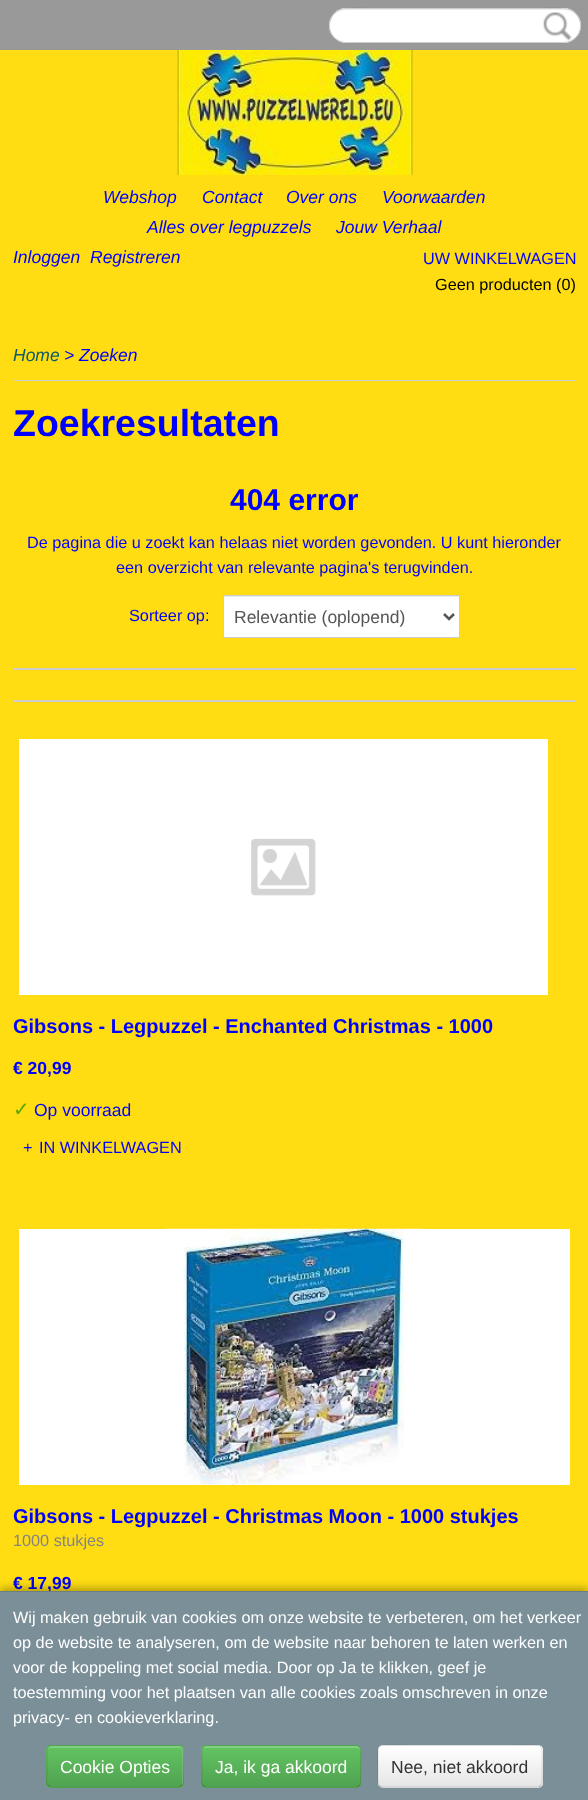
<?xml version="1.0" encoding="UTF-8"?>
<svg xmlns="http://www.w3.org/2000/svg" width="588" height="1800">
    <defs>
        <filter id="blur1" x="-50%" y="-200%" width="200%" height="500%"><feGaussianBlur stdDeviation="4.5"/></filter>
        <clipPath id="clip1"><rect x="46" y="1745" width="138" height="43" rx="5"/></clipPath>
        <linearGradient id="g1" gradientUnits="userSpaceOnUse" x1="115" y1="1746" x2="115" y2="1786"><stop offset="0" stop-color="#62C462"/><stop offset="1" stop-color="#51A351"/></linearGradient>
        <clipPath id="clip2"><rect x="201" y="1745" width="160" height="43" rx="5"/></clipPath>
        <linearGradient id="g2" gradientUnits="userSpaceOnUse" x1="281" y1="1746" x2="281" y2="1786"><stop offset="0" stop-color="#62C462"/><stop offset="1" stop-color="#51A351"/></linearGradient>
        <clipPath id="clip3"><rect x="378" y="1745" width="165" height="43" rx="5"/></clipPath>
        <linearGradient id="g3" gradientUnits="userSpaceOnUse" x1="460" y1="1746" x2="460" y2="1786"><stop offset="0" stop-color="#FFFFFF"/><stop offset="1" stop-color="#E6E6E6"/></linearGradient>
    </defs>
    <rect width="100%" height="100%" fill="#FFDD12"/>
    <rect x="0" y="0" width="588" height="50" fill="#999999"/>
    <rect x="329" y="8" width="252" height="35" rx="17.5" fill="#FFFFFF"/>
    <path d="M 346 10 H 564 C 573 10 580 17 580 25 C 581 0 538 9 528 9 H 382 C 372 9 329 0 330 25 C 330 17 337 10 346 10 Z" fill="#000000" fill-opacity="0.07"/>
    <rect x="329.5" y="8.5" width="251" height="34" rx="17" fill="none" stroke="#CCCCCC"/>
    <image x="543" y="12" width="29" height="29" href="img_01.png"/>
    <image x="177" y="50" width="236" height="125" href="img_02.png"/>
    <text x="103" y="203" font-family="Liberation Sans" font-size="17.5" font-style="italic" fill="#0000FF">Webshop</text>
    <text x="202" y="203" font-family="Liberation Sans" font-size="17.5" font-style="italic" fill="#0000FF">Contact</text>
    <text x="286" y="203" font-family="Liberation Sans" font-size="17.5" font-style="italic" fill="#0000FF">Over ons</text>
    <text x="382" y="203" font-family="Liberation Sans" font-size="17.5" font-style="italic" fill="#0000FF">Voorwaarden</text>
    <text x="147" y="233" font-family="Liberation Sans" font-size="17.5" font-style="italic" fill="#0000FF">Alles over legpuzzels</text>
    <text x="336" y="233" font-family="Liberation Sans" font-size="17.5" font-style="italic" fill="#0000FF">Jouw Verhaal</text>
    <text x="13" y="263" font-family="Liberation Sans" font-size="17.5" font-style="italic" fill="#0000FF">Inloggen</text>
    <text x="90" y="263" font-family="Liberation Sans" font-size="17.5" font-style="italic" fill="#0000FF">Registreren</text>
    <text x="423" y="264" font-family="Liberation Sans" font-size="16.25" fill="#0000FF">UW WINKELWAGEN</text>
    <text x="435" y="290" font-family="Liberation Sans" font-size="16.25" fill="#000000">Geen producten (0)</text>
    <rect x="13" y="380" width="563" height="1" fill="#CCCCCC"/>
    <text x="13" y="361" font-family="Liberation Sans" font-size="17.5" font-style="italic" fill="#105B63">Home</text>
    <text x="64" y="361" font-family="Liberation Sans" font-size="17.5" font-style="italic" fill="#0000FF">&gt; Zoeken</text>
    <text x="13" y="436" font-family="Liberation Sans" font-size="37.5" font-weight="700" fill="#0000FF">Zoekresultaten</text>
    <text x="230" y="510" font-family="Liberation Sans" font-size="30" font-weight="700" fill="#0000FF">404 error</text>
    <text x="27" y="548" font-family="Liberation Sans" font-size="16.25" fill="#0000FF">De pagina die u zoekt kan helaas niet worden gevonden. U kunt hieronder</text>
    <text x="116" y="573" font-family="Liberation Sans" font-size="16.25" fill="#0000FF">een overzicht van relevante pagina's terugvinden.</text>
    <text x="129" y="621" font-family="Liberation Sans" font-size="16.25" fill="#0000FF">Sorteer op:</text>
    <rect x="224" y="597" width="235" height="40" fill="#FFFFFF"/>
    <rect x="224" y="596" width="235" height="1" fill="#ECECEC"/>
    <rect x="223.5" y="595.5" width="236" height="42" fill="none" stroke="#CCCCCC"/>
    <path d="M 444 614 L 449 619 L 454 614" fill="none" stroke="#555555" stroke-width="2.5"/>
    <text x="234" y="623" font-family="Liberation Sans" font-size="17.5" fill="#555555">Relevantie (oplopend)</text>
    <rect x="13" y="668" width="563" height="2" fill="#CCCCCC"/>
    <rect x="13" y="700" width="563" height="2" fill="#CCCCCC"/>
    <rect x="19" y="739" width="529" height="256" fill="#FFFFFF"/>
    <image x="251" y="838" width="65" height="58" href="img_03.png"/>
    <text x="13" y="1033" font-family="Liberation Sans" font-size="20" font-weight="700" fill="#0000FF">Gibsons - Legpuzzel - Enchanted Christmas - 1000</text>
    <text x="13" y="1074" font-family="Liberation Sans" font-size="17.5" font-weight="700" fill="#0000FF">€ 20,99</text>
    <text x="13" y="1116" font-family="DejaVu Sans" font-size="20" fill="#5EA600">✓</text>
    <text x="34" y="1116" font-family="Liberation Sans" font-size="17.5" fill="#0000FF">Op voorraad</text>
    <text x="23" y="1153" font-family="Liberation Sans" font-size="16.25" fill="#0000FF">+</text>
    <text x="39" y="1153" font-family="Liberation Sans" font-size="16.25" fill="#0000FF">IN WINKELWAGEN</text>
    <rect x="19" y="1229" width="551" height="256" fill="#FFFFFF"/>
    <image x="166" y="1228" width="257" height="257" href="img_04.png"/>
    <text x="13" y="1523" font-family="Liberation Sans" font-size="20" font-weight="700" fill="#0000FF">Gibsons - Legpuzzel - Christmas Moon - 1000 stukjes</text>
    <text x="13" y="1546" font-family="Liberation Sans" font-size="16.25" fill="#848484">1000 stukjes</text>
    <text x="13" y="1589" font-family="Liberation Sans" font-size="17.5" font-weight="700" fill="#0000FF">€ 17,99</text>
    <rect x="0" y="1588" width="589" height="208" fill="#000000" fill-opacity="0.3" filter="url(#blur1)"/>
    <rect x="0" y="1592" width="588" height="208" fill="#7A8F98"/>
    <rect x="0" y="1591" width="588" height="1" fill="#697E87"/>
    <text font-family="Liberation Sans" font-size="16.25" fill="#FFFFFF">
        <tspan x="13" y="1623">Wij maken gebruik van cookies om onze website te verbeteren, om het verkeer</tspan>
        <tspan x="13" y="1648">op de website te analyseren, om de website naar behoren te laten werken en</tspan>
        <tspan x="13" y="1673">voor de koppeling met social media. Door op Ja te klikken, geef je</tspan>
        <tspan x="13" y="1698">toestemming voor het plaatsen van alle cookies zoals omschreven in onze</tspan>
        <tspan x="13" y="1723">privacy- en cookieverklaring.</tspan>
    </text>
    <rect x="46" y="1745" width="138" height="43" rx="5" fill="#5BB75B"/>
    <g clip-path="url(#clip1)">
        <rect x="46" y="1746" width="138" height="40" fill="url(#g1)"/>
    </g>
    <path d="M 51 1748 H 179 C 181 1748 182 1749 182 1751 V 1785 C 183 1784 183 1783 183 1782 V 1750 C 183 1748 181 1746 179 1746 H 52 C 50 1746 48 1748 48 1750 V 1751 C 48 1749 49 1748 51 1748 Z" fill="#FFFFFF" fill-opacity="0.2"/>
    <path d="M 182 1785.5 L 179 1787 H 51 L 48 1785.5" fill="none" stroke="#000000" stroke-opacity="0.25" stroke-width="1.2"/>
    <path d="M 48 1785.5 C 45.5 1783 47 1774.5 47 1771.5 V 1755.5 C 47 1752 46 1745.5 51 1745.5 H 179 C 184 1745.5 183 1752 183 1755.5 V 1771.5 C 183 1774.5 184.5 1783 182 1785.5" fill="none" stroke="#000000" stroke-opacity="0.1" stroke-width="1.2"/>
    <text x="60" y="1773" font-family="Liberation Sans" font-size="17.5" fill="#FFFFFF">Cookie Opties</text>
    <rect x="201" y="1745" width="160" height="43" rx="5" fill="#5BB75B"/>
    <g clip-path="url(#clip2)">
        <rect x="201" y="1746" width="160" height="40" fill="url(#g2)"/>
    </g>
    <path d="M 206 1748 H 356 C 358 1748 360 1749 360 1751 V 1750 C 360 1748 358 1746 356 1746 H 207 C 205 1746 204 1747 203 1749 Z" fill="#81CF81"/>
    <path d="M 359.5 1785.5 C 358.5 1786.5 357.5 1787 356 1787 H 206 C 205 1787 204 1786.5 203 1785.5" fill="none" stroke="#000000" stroke-opacity="0.25" stroke-width="1.2"/>
    <path d="M 203 1785.5 C 202.5 1785 202 1783.5 202 1782.5 V 1750 C 202 1749 202.5 1747.5 203 1747 C 204 1746 205 1745.5 206 1745.5 H 356 C 357.5 1745.5 358.5 1746 359.5 1747 C 360 1747.5 360.5 1749 360.5 1750 V 1782.5 C 360.5 1783.5 360 1785 359.5 1785.5" fill="none" stroke="#000000" stroke-opacity="0.1" stroke-width="1.2"/>
    <text x="215" y="1773" font-family="Liberation Sans" font-size="17.5" fill="#FFFFFF">Ja, ik ga akkoord</text>
    <rect x="378" y="1745" width="165" height="43" rx="5" fill="#F5F5F5"/>
    <g clip-path="url(#clip3)">
        <rect x="378" y="1746" width="165" height="40" fill="url(#g3)"/>
    </g>
    <path d="M 540.5 1785.5 C 540 1786.5 538.5 1787 537.5 1787 H 382.5 C 381.5 1787 380 1786.5 379.5 1785.5" fill="none" stroke="#000000" stroke-opacity="0.25" stroke-width="1.2"/>
    <path d="M 379.5 1785.5 C 376.5 1783 378 1774.5 378 1771.5 C 378 1739 372.5 1745.5 408.5 1745.5 H 511.5 C 547.5 1745.5 542 1739 542 1771.5 C 542 1774.5 543.5 1783 540.5 1785.5" fill="none" stroke="#000000" stroke-opacity="0.1" stroke-width="1.2"/>
    <text x="391" y="1773" font-family="Liberation Sans" font-size="17.5" fill="#333333">Nee, niet akkoord</text>
</svg>
